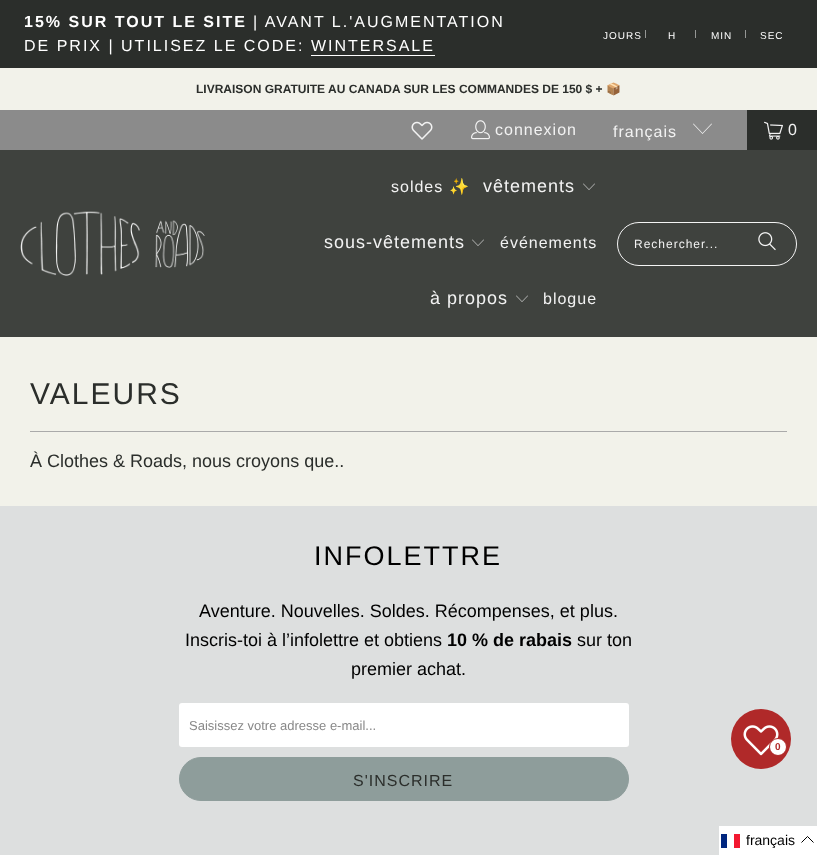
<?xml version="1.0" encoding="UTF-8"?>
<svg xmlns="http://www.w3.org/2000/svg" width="817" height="855">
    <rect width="100%" height="100%" fill="#F2F2EA"/>
    <rect x="0" y="0" width="817" height="68" fill="#2B2E2B"/>
    <text x="24" y="27" font-family="Liberation Sans" font-size="16" font-weight="700" letter-spacing="2" fill="#FFFFFF">15% SUR TOUT LE SITE</text>
    <text x="253" y="27" font-family="Liberation Sans" font-size="16" letter-spacing="2" fill="#FFFFFF">| AVANT L.'AUGMENTATION</text>
    <text x="24" y="51" font-family="Liberation Sans" font-size="16" letter-spacing="2" fill="#FFFFFF">DE PRIX | UTILISEZ LE CODE: WINTERSALE</text>
    <rect x="311" y="55" width="124" height="1" fill="#FFFFFF"/>
    <text x="603" y="39" font-family="Liberation Sans" font-size="10" letter-spacing="1" fill="#FFFFFF">JOURS</text>
    <rect x="645" y="30" width="1" height="8" fill="#959795"/>
    <text x="668" y="39" font-family="Liberation Sans" font-size="10" letter-spacing="1" fill="#FFFFFF">H</text>
    <rect x="695" y="30" width="1" height="8" fill="#959795"/>
    <text x="711" y="39" font-family="Liberation Sans" font-size="10" letter-spacing="1" fill="#FFFFFF">MIN</text>
    <rect x="745" y="30" width="1" height="8" fill="#959795"/>
    <text x="760" y="39" font-family="Liberation Sans" font-size="10" letter-spacing="1" fill="#FFFFFF">SEC</text>
    <text x="196" y="93" font-family="Liberation Sans" font-size="12" font-weight="700" fill="#2B2E2B">LIVRAISON GRATUITE AU CANADA SUR LES COMMANDES DE 150 $ +</text>
    <text x="606" y="93" font-family="Noto Color Emoji" font-size="12" font-weight="700" fill="#2B2E2B">📦</text>
    <rect x="0" y="110" width="747" height="40" fill="#8B8B8B"/>
    <image x="411" y="121" width="22" height="19" href="img_01.png"/>
    <image x="471" y="120" width="19" height="20" href="img_02.png"/>
    <text x="495" y="135" font-family="Liberation Sans" font-size="16" letter-spacing="1" fill="#F2F2F2">connexion</text>
    <text x="613" y="137" font-family="Liberation Sans" font-size="16" letter-spacing="1" fill="#F2F2F2">français</text>
    <path d="M 702.5 134 L 693 124 L 693.5 123.5 L 702.5 133 L 711.5 123.5 L 712 124 Z" fill="#F2F2F2"/>
    <rect x="747" y="110" width="70" height="40" fill="#2B2E2B"/>
    <image x="764" y="121" width="19" height="19" href="img_03.png"/>
    <text x="788" y="135" font-family="Liberation Sans" font-size="16" letter-spacing="1" fill="#F2F2F2">0</text>
    <rect x="0" y="150" width="817" height="187" fill="#3F423E"/>
    <image x="20" y="211" width="185" height="65" href="img_04.png"/>
    <text x="391" y="192" font-family="Liberation Sans" font-size="16" letter-spacing="1" fill="#F2F2F2">soldes</text>
    <text x="449" y="192" font-family="Noto Color Emoji" font-size="16" letter-spacing="1" fill="#F2F2F2">✨</text>
    <text x="483" y="192" font-family="Liberation Sans" font-size="18" letter-spacing="1" fill="#F2F2F2">vêtements</text>
    <image x="583" y="183" width="12" height="7" href="img_05.png"/>
    <text x="324" y="248" font-family="Liberation Sans" font-size="18" letter-spacing="1" fill="#F2F2F2">sous-vêtements</text>
    <image x="472" y="239" width="12" height="7" href="img_05.png"/>
    <text x="500" y="248" font-family="Liberation Sans" font-size="16" letter-spacing="1" fill="#F2F2F2">événements</text>
    <text x="430" y="304" font-family="Liberation Sans" font-size="18" letter-spacing="1" fill="#F2F2F2">à propos</text>
    <image x="516" y="295" width="12" height="7" href="img_05.png"/>
    <text x="543" y="304" font-family="Liberation Sans" font-size="16" letter-spacing="1" fill="#F2F2F2">blogue</text>
    <rect x="617.5" y="222.5" width="179" height="43" rx="21.5" fill="none" stroke="#F4F4F4"/>
    <text x="634" y="248" font-family="Liberation Sans" font-size="12" letter-spacing="1" fill="#F2F2F2">Rechercher...</text>
    <image x="758" y="232" width="18" height="19" href="img_06.png"/>
    <text x="30" y="404" font-family="Liberation Sans" font-size="30" letter-spacing="2" fill="#2B2E2B">VALEURS</text>
    <rect x="30" y="431" width="757" height="1" fill="#AAAAAA"/>
    <text x="30" y="467" font-family="Liberation Sans" font-size="18" fill="#2B2E2B">À Clothes &amp; Roads, nous croyons que..</text>
    <rect x="0" y="506" width="817" height="349" fill="#DDDFDF"/>
    <text x="314" y="565" font-family="Liberation Sans" font-size="27" letter-spacing="2" fill="#000000">INFOLETTRE</text>
    <text x="199" y="617" font-family="Liberation Sans" font-size="18" fill="#000000">Aventure. Nouvelles. Soldes. Récompenses, et plus.</text>
    <text x="185" y="646" font-family="Liberation Sans" font-size="18" fill="#000000">Inscris-toi à l’infolettre et obtiens</text>
    <text x="447" y="646" font-family="Liberation Sans" font-size="18" font-weight="700" fill="#000000">10 % de rabais</text>
    <text x="577" y="646" font-family="Liberation Sans" font-size="18" fill="#000000">sur ton</text>
    <text x="351" y="675" font-family="Liberation Sans" font-size="18" fill="#000000">premier achat.</text>
    <rect x="179" y="703" width="450" height="44" rx="3" fill="#FFFFFF"/>
    <text x="189" y="730" font-family="Liberation Sans" font-size="13" fill="#888888">Saisissez votre adresse e-mail...</text>
    <rect x="179.5" y="757.5" width="449" height="43" rx="21.5" fill="#8E9D9B" stroke="#8E9D9B"/>
    <text x="353" y="786" font-family="Liberation Sans" font-size="16" letter-spacing="1" fill="#2B2E2B">S'INSCRIRE</text>
    <circle cx="761" cy="739" r="30" fill="#B02929"/>
    <image x="743" y="725" width="36" height="31" href="img_07.png"/>
    <circle cx="778" cy="747" r="8.5" fill="#FFFFFF" stroke="#B02929"/>
    <text x="775" y="750" font-family="Liberation Sans" font-size="10" font-weight="700" fill="#B02929">0</text>
    <rect x="719" y="826" width="98" height="29" fill="#FFFFFF"/>
    <rect x="721" y="834" width="6" height="14" fill="#00267F"/>
    <rect x="734" y="834" width="6" height="14" fill="#F31830"/>
    <text x="746" y="845" font-family="Liberation Sans" font-size="14" fill="#000000">français</text>
    <path d="M 813.5 842.5 L 807.5 836.5 L 801.5 842.5" fill="none" stroke="#000000"/>
</svg>
